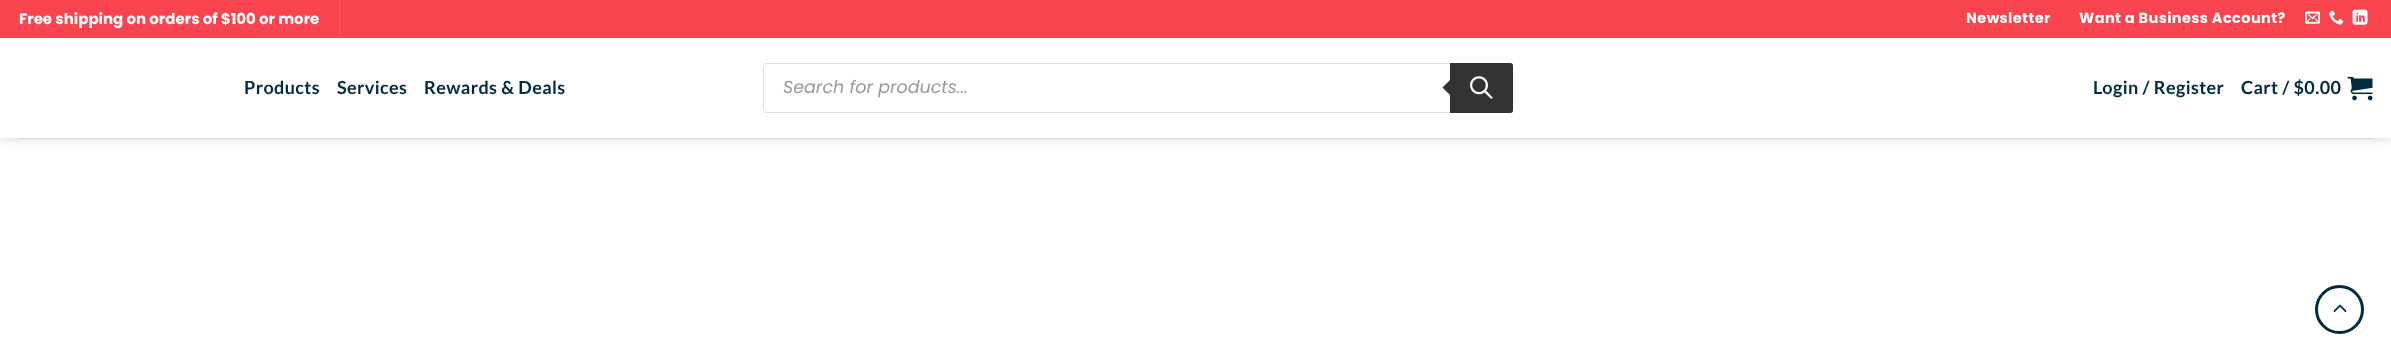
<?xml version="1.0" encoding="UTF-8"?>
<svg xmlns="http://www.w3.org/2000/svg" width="2391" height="358">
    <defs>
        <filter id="blur1" x="-50%" y="-200%" width="200%" height="500%"><feGaussianBlur stdDeviation="6"/></filter>
    </defs>
    <rect width="100%" height="100%" fill="#FFFFFF"/>
    <rect x="1" y="1" width="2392" height="138" fill="#000000" fill-opacity="0.15" filter="url(#blur1)"/>
    <rect x="0" y="0" width="2391" height="38" fill="#F8444F"/>
    <text x="19" y="24" font-family="Poppins" font-size="15" font-weight="700" fill="#FFFFFF">Free shipping on orders of $100 or more</text>
    <rect x="339" y="0" width="1" height="38" fill="#F95761"/>
    <text x="1966" y="23" font-family="Poppins" font-size="14.5" font-weight="700" letter-spacing="0.4" fill="#FFFFFF">Newsletter</text>
    <text x="2079" y="23" font-family="Poppins" font-size="14.5" font-weight="700" letter-spacing="0.4" fill="#FFFFFF">Want a Business Account?</text>
    <image x="2305" y="11" width="15" height="13" href="img_01.png"/>
    <image x="2329" y="10" width="15" height="15" href="img_02.png"/>
    <image x="2352" y="9" width="16" height="16" href="img_03.png"/>
    <rect x="0" y="38" width="2391" height="100" fill="#FFFFFF"/>
    <text x="244" y="94" font-family="Lato" font-size="18" font-weight="700" letter-spacing="0.4" fill="#012C3D">Products</text>
    <text x="337" y="94" font-family="Lato" font-size="18" font-weight="700" letter-spacing="0.4" fill="#012C3D">Services</text>
    <text x="424" y="94" font-family="Lato" font-size="18" font-weight="700" letter-spacing="0.4" fill="#012C3D">Rewards &amp; Deals</text>
    <rect x="763.5" y="63.5" width="749" height="49" rx="3.5" fill="none" stroke="#DDDDDD"/>
    <text x="783" y="93" font-family="Poppins" font-size="17.5" font-style="italic" fill="#999999">Search for products...</text>
    <path d="M 1450 63 H 1510.5 C 1512 63 1513 64 1513 65.5 V 110.5 C 1513 112 1512 113 1510.5 113 H 1450 Z" fill="#333333"/>
    <path d="M 1452.5 77.5 V 97.5 L 1442.5 87.5 Z" fill="#333333"/>
    <image x="1470" y="76" width="23" height="23" href="img_04.png"/>
    <text x="2093" y="94" font-family="Lato" font-size="18" font-weight="700" letter-spacing="0.4" fill="#012C3D">Login / Register</text>
    <text x="2241" y="94" font-family="Lato" font-size="18" font-weight="700" letter-spacing="0.4" fill="#012C3D">Cart / $0.00</text>
    <image x="2347" y="76" width="26" height="25" href="img_05.png"/>
    <rect x="19" y="138" width="2354" height="1" fill="#D3D8D9"/>
    <circle cx="2339.5" cy="309.5" r="23" fill="none" stroke="#012C3D" stroke-width="3"/>
    <image x="2333" y="304" width="14" height="9" href="img_06.png"/>
</svg>
